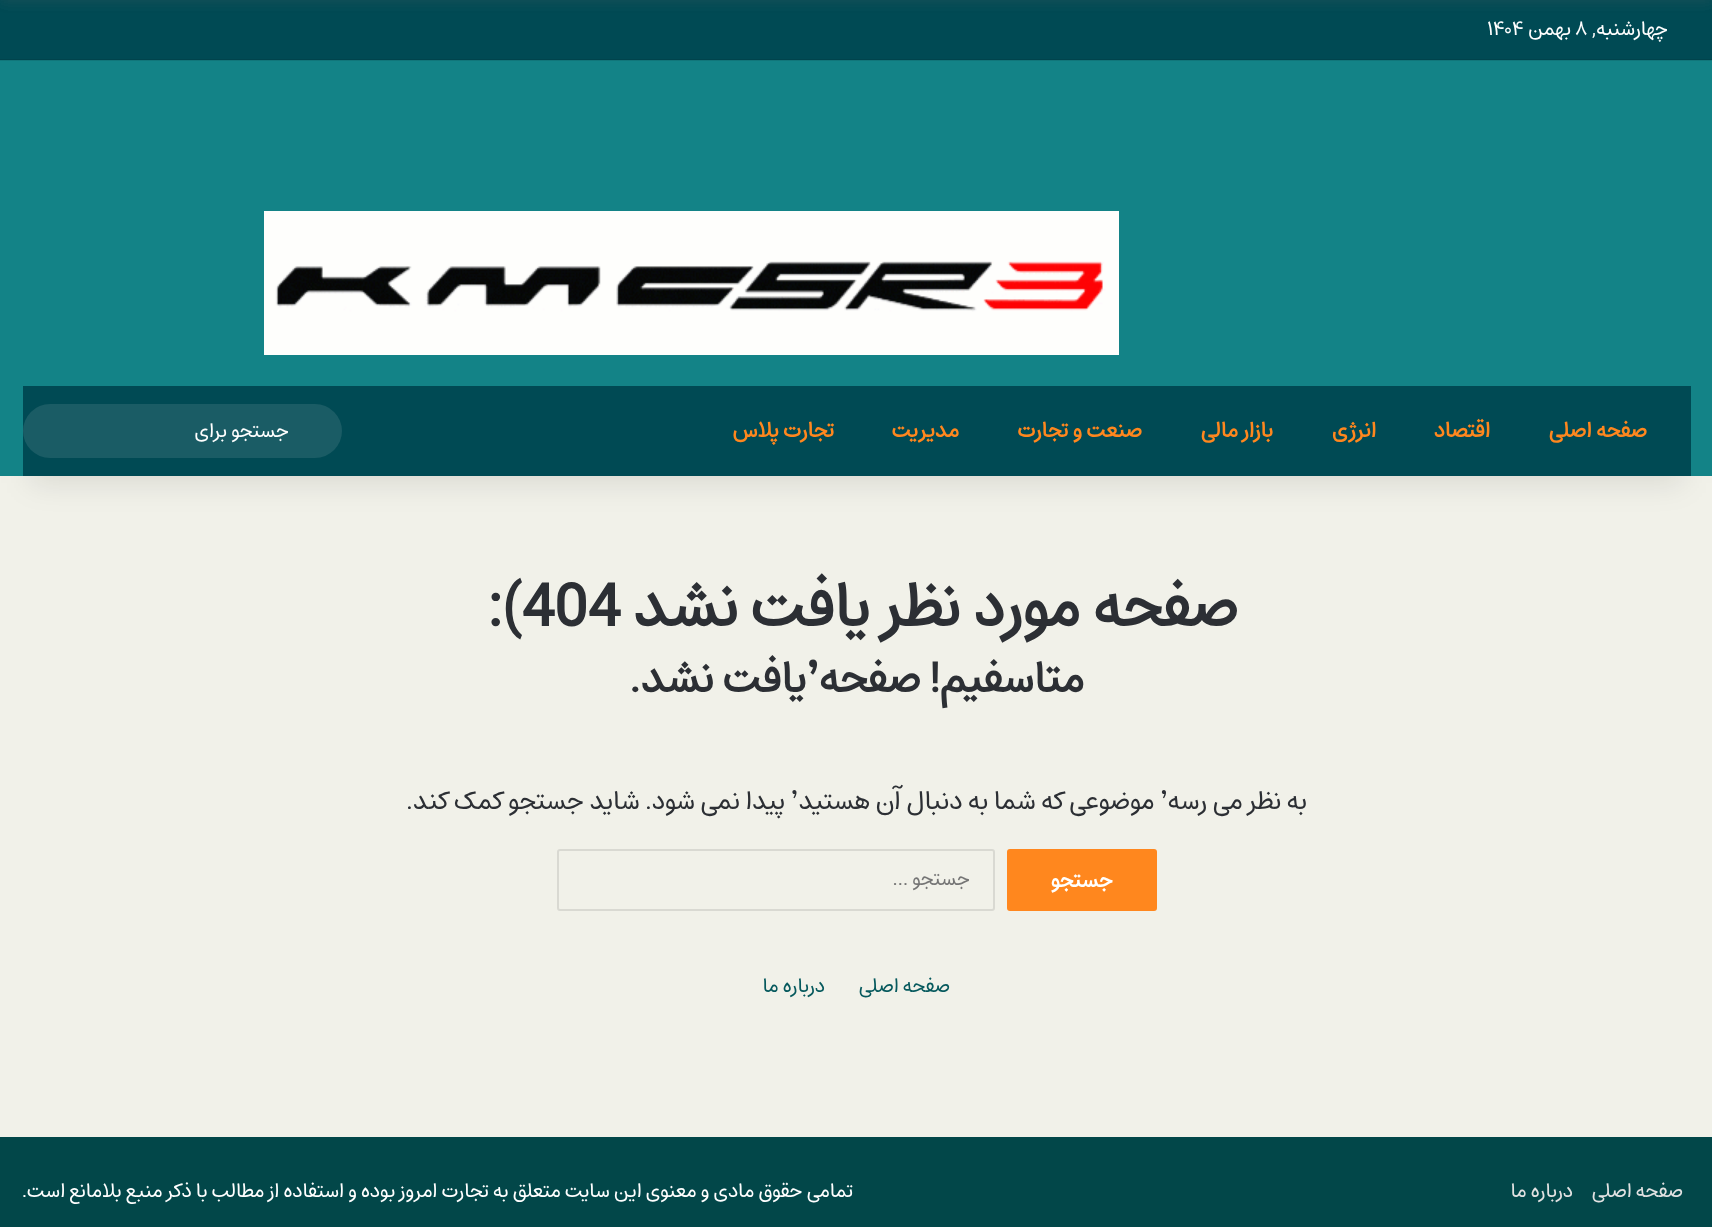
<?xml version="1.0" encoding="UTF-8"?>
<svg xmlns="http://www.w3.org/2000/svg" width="1712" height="1227">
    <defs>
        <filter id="blur1" x="-50%" y="-200%" width="200%" height="500%"><feGaussianBlur stdDeviation="15"/></filter>
        <filter id="blur2" x="-50%" y="-200%" width="200%" height="500%"><feGaussianBlur stdDeviation="6"/></filter>
    </defs>
    <rect width="100%" height="100%" fill="#F1F1E9"/>
    <rect x="30" y="66" width="1653" height="417" fill="#000000" fill-opacity="0.1" filter="url(#blur1)"/>
    <rect x="0" y="61" width="1712" height="415" fill="#138387"/>
    <rect x="0" y="60" width="1712" height="1" fill="#11767A"/>
    <rect x="0" y="0" width="1712" height="59" fill="#004A54"/>
    <rect x="0" y="-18" width="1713" height="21" fill="#636363" fill-opacity="0.2" filter="url(#blur2)"/>
    <image x="264" y="211" width="855" height="144" href="img_01.png"/>
    <rect x="0" y="59" width="1712" height="1" fill="#00434C"/>
    <text x="1668" y="35" font-family="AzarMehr" font-size="19.5" direction="rtl" fill="#FFFFFF">چهارشنبه,</text>
    <text x="1575" y="35" font-family="AzarMehr" font-size="19.5" fill="#FFFFFF">۸</text>
    <text x="1571" y="35" font-family="AzarMehr" font-size="19.5" direction="rtl" fill="#FFFFFF">بهمن</text>
    <text x="1487" y="35" font-family="AzarMehr" font-size="19.5" fill="#FFFFFF">۱۴۰۴</text>
    <rect x="23" y="386" width="1668" height="90" fill="#004A54"/>
    <text x="1647" y="437" font-family="AzarMehr" font-size="21" font-weight="700" direction="rtl" fill="#FF871E">صفحه اصلی</text>
    <text x="1490" y="437" font-family="AzarMehr" font-size="21" font-weight="700" direction="rtl" fill="#FF871E">اقتصاد</text>
    <text x="1376" y="437" font-family="AzarMehr" font-size="21" font-weight="700" direction="rtl" fill="#FF871E">انرژی</text>
    <text x="1273" y="437" font-family="AzarMehr" font-size="21" font-weight="700" direction="rtl" fill="#FF871E">بازار مالی</text>
    <text x="1142" y="437" font-family="AzarMehr" font-size="21" font-weight="700" direction="rtl" fill="#FF871E">صنعت و تجارت</text>
    <text x="959" y="437" font-family="AzarMehr" font-size="21" font-weight="700" direction="rtl" fill="#FF871E">مدیریت</text>
    <text x="834" y="437" font-family="AzarMehr" font-size="21" font-weight="700" direction="rtl" fill="#FF871E">تجارت پلاس</text>
    <rect x="23" y="404" width="319" height="54" rx="27" fill="#1A5C65"/>
    <text x="289" y="437" font-family="AzarMehr" font-size="19.5" direction="rtl" fill="#FFFFFF">جستجو برای</text>
    <text x="1238" y="626" font-family="AzarMehr" font-size="60" font-weight="700" direction="rtl" fill="#2C2F34">صفحه مورد نظر یافت نشد</text>
    <text x="488" y="626" font-family="AzarMehr" font-size="60" font-weight="700" fill="#2C2F34">:(404</text>
    <text x="1084" y="692" font-family="AzarMehr" font-size="42" font-weight="700" direction="rtl" fill="#2C2F34">متاسفیم! صفحه’یافت نشد.</text>
    <text x="1307" y="809" font-family="AzarMehr" font-size="25.5" direction="rtl" fill="#2C2F34">به نظر می رسه’ موضوعی که شما به دنبال آن هستید’ پیدا نمی شود. شاید جستجو کمک کند.</text>
    <rect x="1007" y="849" width="150" height="62" rx="3" fill="#FF871E"/>
    <text x="1113" y="887" font-family="AzarMehr" font-size="21" font-weight="700" direction="rtl" fill="#FFFFFF">جستجو</text>
    <rect x="558" y="850" width="436" height="60" rx="2" fill="none" stroke="#D9D9D2" stroke-width="2"/>
    <text x="970" y="885" font-family="AzarMehr" font-size="19.5" direction="rtl" fill="#757575">جستجو …</text>
    <text x="950" y="992" font-family="AzarMehr" font-size="19.5" direction="rtl" fill="#06595D">صفحه اصلی</text>
    <text x="825" y="992" font-family="AzarMehr" font-size="19.5" direction="rtl" fill="#06595D">درباره ما</text>
    <rect x="0" y="1137" width="1712" height="90" fill="#024749"/>
    <text x="1683" y="1197" font-family="AzarMehr" font-size="19.5" direction="rtl" fill="#E2E2E2">صفحه اصلی</text>
    <text x="1573" y="1197" font-family="AzarMehr" font-size="19.5" direction="rtl" fill="#E2E2E2">درباره ما</text>
    <text x="853" y="1197" font-family="AzarMehr" font-size="19.5" direction="rtl" fill="#FFFFFF">تمامی حقوق مادی و معنوی این سایت متعلق به تجارت امروز بوده و استفاده از مطالب با ذکر منبع بلامانع است.</text>
</svg>
